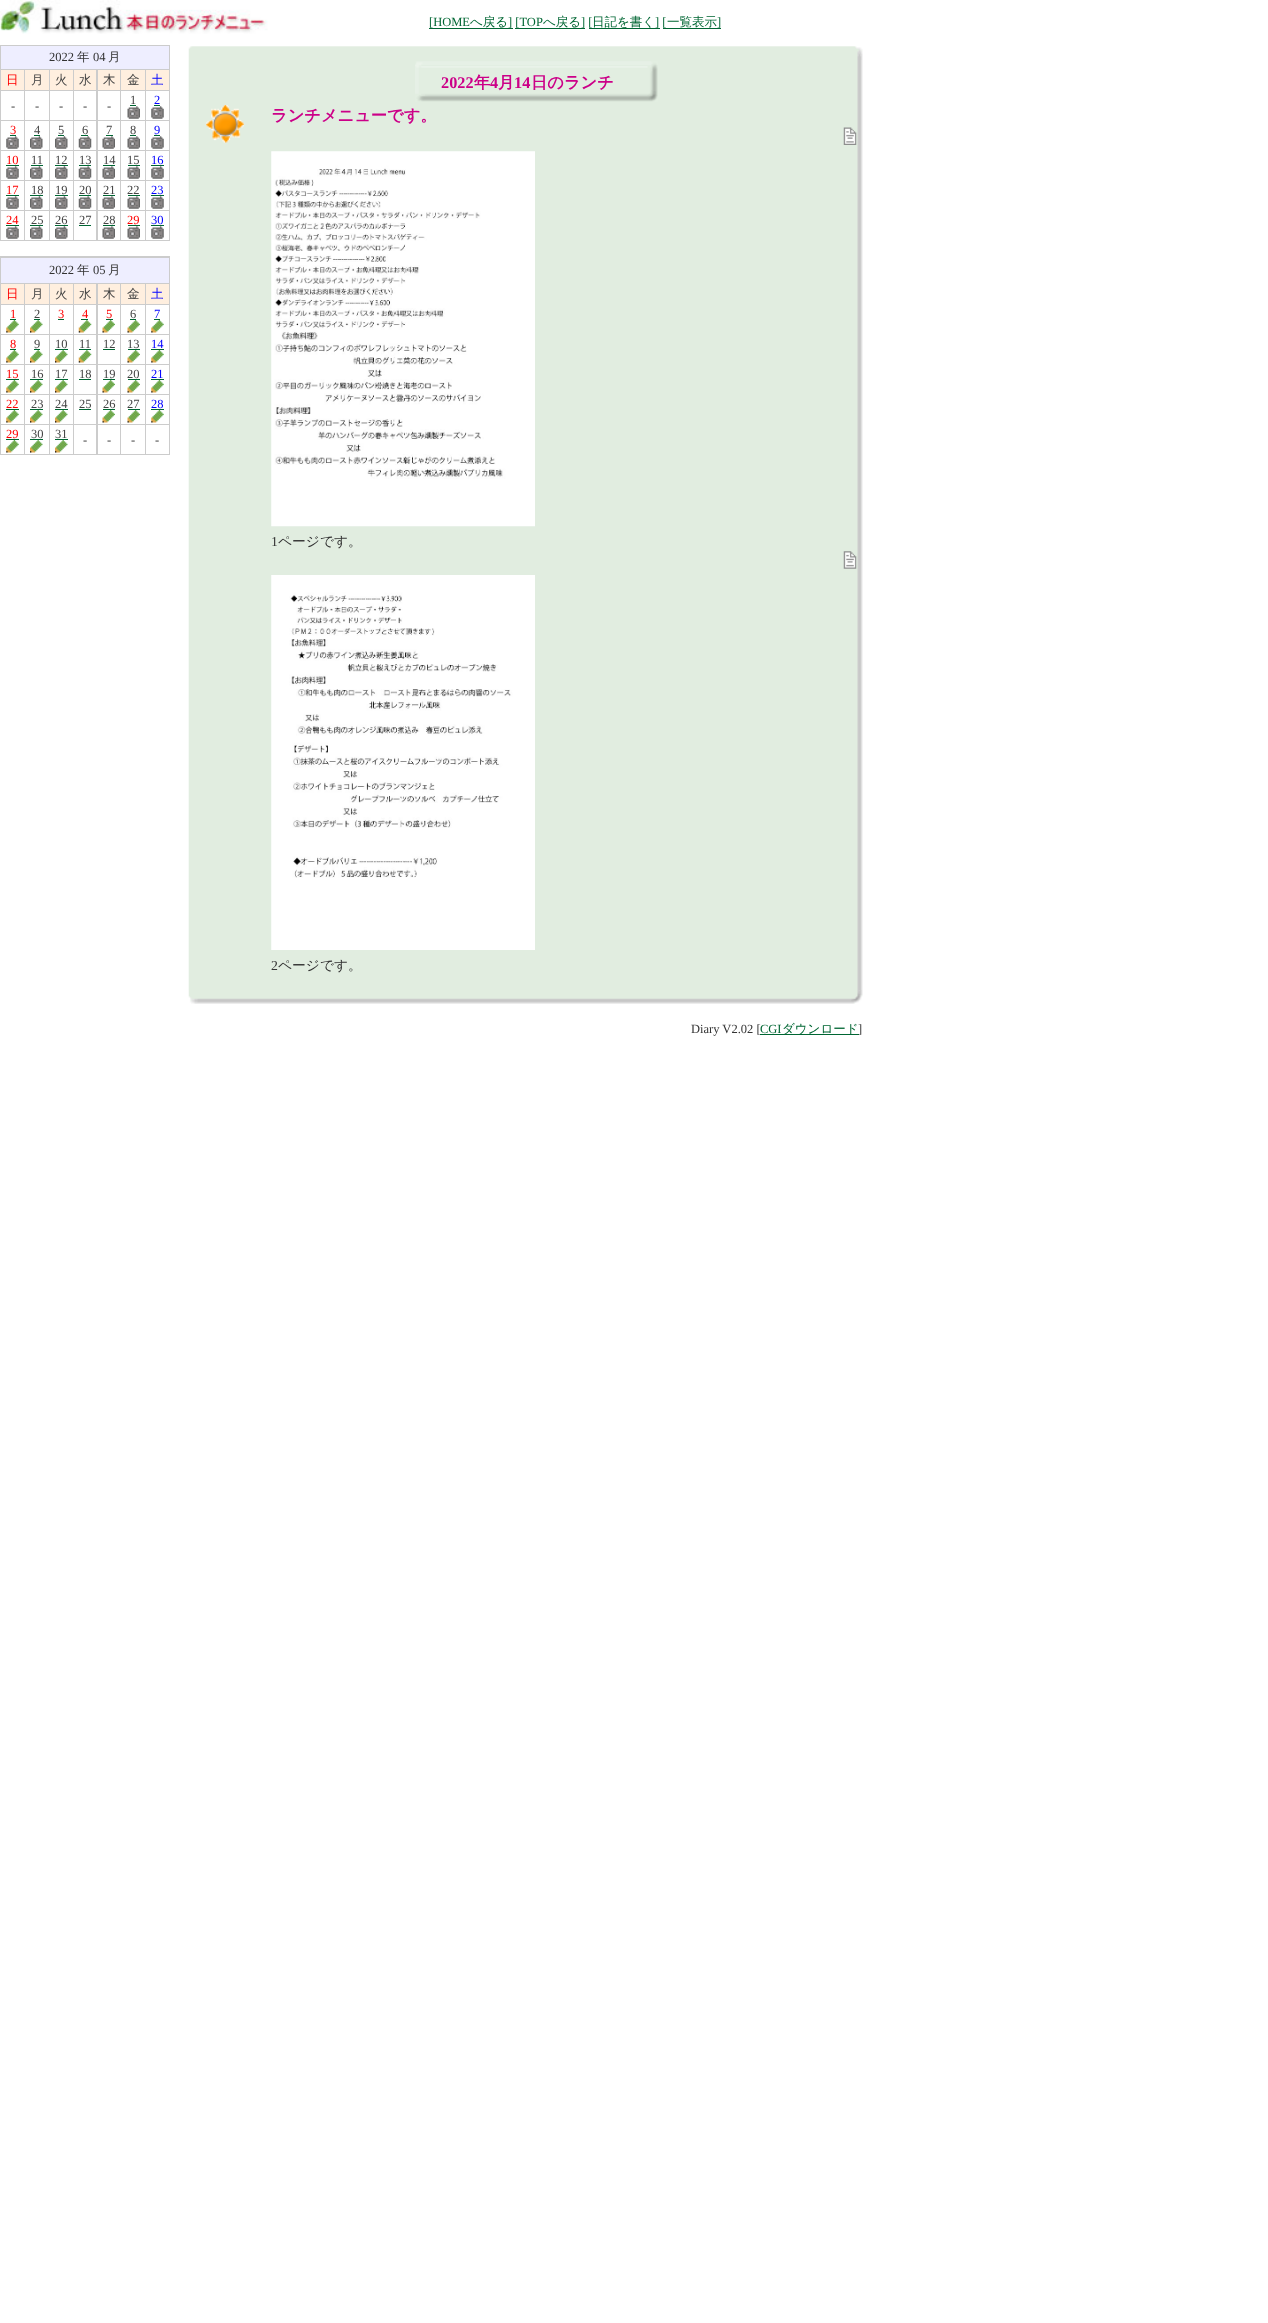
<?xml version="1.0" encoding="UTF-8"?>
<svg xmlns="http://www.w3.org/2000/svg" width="1268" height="2323">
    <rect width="100%" height="100%" fill="#FFFFFF"/>
    <image x="0" y="0" width="268" height="34" href="img_01.png"/>
    <text x="429" y="26" font-family="Liberation Serif" font-size="12.5" fill="#006633">[HOME</text>
    <rect x="429" y="28" width="84" height="1" fill="#006633"/>
    <text x="470" y="26" font-family="WenQuanYi Zen Hei" font-size="12.5" font-weight="500" fill="#006633">へ戻る</text>
    <text x="508" y="26" font-family="Liberation Serif" font-size="12.5" fill="#006633">] [TOP</text>
    <text x="543" y="26" font-family="WenQuanYi Zen Hei" font-size="12.5" font-weight="500" fill="#006633">へ戻る</text>
    <text x="581" y="26" font-family="Liberation Serif" font-size="12.5" fill="#006633">] [</text>
    <rect x="515" y="28" width="70" height="1" fill="#006633"/>
    <rect x="589" y="28" width="71" height="1" fill="#006633"/>
    <text x="592" y="26" font-family="WenQuanYi Zen Hei" font-size="12.5" font-weight="500" fill="#006633">日記を書く</text>
    <text x="655" y="26" font-family="Liberation Serif" font-size="12.5" fill="#006633">] [</text>
    <text x="667" y="26" font-family="WenQuanYi Zen Hei" font-size="12.5" font-weight="500" fill="#006633">一覧表示</text>
    <text x="717" y="26" font-family="Liberation Serif" font-size="12.5" fill="#006633">]</text>
    <rect x="663" y="28" width="58" height="1" fill="#006633"/>
    <rect x="0" y="45" width="170" height="196" fill="#CCCCCC"/>
    <rect x="1" y="46" width="168" height="23" fill="#EEEEFF"/>
    <text x="49" y="61" font-family="Liberation Serif" font-size="12.5" fill="#333333">2022</text>
    <text x="77" y="61" font-family="WenQuanYi Zen Hei" font-size="12.5" font-weight="500" fill="#333333">年</text>
    <text x="93" y="61" font-family="Liberation Serif" font-size="12.5" fill="#333333">04</text>
    <text x="108" y="61" font-family="WenQuanYi Zen Hei" font-size="12.5" font-weight="500" fill="#333333">月</text>
    <rect x="1" y="70" width="23" height="20" fill="#FFEFDF"/>
    <text x="6" y="84" font-family="WenQuanYi Zen Hei" font-size="12.5" font-weight="500" fill="#FF0000">日</text>
    <rect x="25" y="70" width="24" height="20" fill="#FFEFDF"/>
    <text x="31" y="84" font-family="WenQuanYi Zen Hei" font-size="12.5" font-weight="500" fill="#444444">月</text>
    <rect x="50" y="70" width="23" height="20" fill="#FFEFDF"/>
    <text x="55" y="84" font-family="WenQuanYi Zen Hei" font-size="12.5" font-weight="500" fill="#444444">火</text>
    <rect x="74" y="70" width="22" height="20" fill="#FFEFDF"/>
    <text x="79" y="84" font-family="WenQuanYi Zen Hei" font-size="12.5" font-weight="500" fill="#444444">水</text>
    <rect x="98" y="70" width="22" height="20" fill="#FFEFDF"/>
    <text x="103" y="84" font-family="WenQuanYi Zen Hei" font-size="12.5" font-weight="500" fill="#444444">木</text>
    <rect x="121" y="70" width="24" height="20" fill="#FFEFDF"/>
    <text x="127" y="84" font-family="WenQuanYi Zen Hei" font-size="12.5" font-weight="500" fill="#444444">金</text>
    <rect x="146" y="70" width="23" height="20" fill="#FFEFDF"/>
    <text x="151" y="84" font-family="WenQuanYi Zen Hei" font-size="12.5" font-weight="500" fill="#0000FF">土</text>
    <rect x="121" y="91" width="24" height="29" fill="#FFFFFF"/>
    <text x="130" y="104" font-family="Liberation Serif" font-size="12.5" fill="#444444">1</text>
    <rect x="130" y="105" width="6" height="1" fill="#006633"/>
    <image x="127" y="106" width="13" height="13" href="img_02.png"/>
    <rect x="146" y="91" width="23" height="29" fill="#FFFFFF"/>
    <text x="154" y="104" font-family="Liberation Serif" font-size="12.5" fill="#0000FF">2</text>
    <rect x="154" y="105" width="6" height="1" fill="#006633"/>
    <image x="151" y="106" width="13" height="13" href="img_03.png"/>
    <rect x="1" y="91" width="23" height="29" fill="#FFFFFF"/>
    <text x="11" y="110" font-family="Liberation Serif" font-size="12.5" fill="#333333">-</text>
    <rect x="25" y="91" width="24" height="29" fill="#FFFFFF"/>
    <text x="35" y="110" font-family="Liberation Serif" font-size="12.5" fill="#333333">-</text>
    <rect x="50" y="91" width="23" height="29" fill="#FFFFFF"/>
    <text x="59" y="110" font-family="Liberation Serif" font-size="12.5" fill="#333333">-</text>
    <rect x="74" y="91" width="22" height="29" fill="#FFFFFF"/>
    <text x="83" y="110" font-family="Liberation Serif" font-size="12.5" fill="#333333">-</text>
    <rect x="98" y="91" width="22" height="29" fill="#FFFFFF"/>
    <text x="107" y="110" font-family="Liberation Serif" font-size="12.5" fill="#333333">-</text>
    <rect x="1" y="121" width="23" height="29" fill="#FFFFFF"/>
    <text x="10" y="134" font-family="Liberation Serif" font-size="12.5" fill="#FF0000">3</text>
    <rect x="10" y="135" width="6" height="1" fill="#006633"/>
    <image x="6" y="136" width="13" height="13" href="img_03.png"/>
    <rect x="25" y="121" width="24" height="29" fill="#FFFFFF"/>
    <text x="34" y="134" font-family="Liberation Serif" font-size="12.5" fill="#444444">4</text>
    <rect x="34" y="135" width="6" height="1" fill="#006633"/>
    <image x="30" y="136" width="13" height="13" href="img_04.png"/>
    <rect x="50" y="121" width="23" height="29" fill="#FFFFFF"/>
    <text x="58" y="134" font-family="Liberation Serif" font-size="12.5" fill="#444444">5</text>
    <rect x="58" y="135" width="6" height="1" fill="#006633"/>
    <image x="55" y="136" width="13" height="13" href="img_05.png"/>
    <rect x="74" y="121" width="22" height="29" fill="#FFFFFF"/>
    <text x="82" y="134" font-family="Liberation Serif" font-size="12.5" fill="#444444">6</text>
    <rect x="81" y="135" width="7" height="1" fill="#006633"/>
    <image x="78" y="136" width="14" height="13" href="img_06.png"/>
    <rect x="98" y="121" width="22" height="29" fill="#FFFFFF"/>
    <text x="106" y="134" font-family="Liberation Serif" font-size="12.5" fill="#444444">7</text>
    <rect x="106" y="135" width="7" height="1" fill="#006633"/>
    <image x="102" y="136" width="13" height="13" href="img_02.png"/>
    <rect x="121" y="121" width="24" height="29" fill="#FFFFFF"/>
    <text x="130" y="134" font-family="Liberation Serif" font-size="12.5" fill="#444444">8</text>
    <rect x="130" y="135" width="6" height="1" fill="#006633"/>
    <image x="127" y="136" width="13" height="13" href="img_02.png"/>
    <rect x="146" y="121" width="23" height="29" fill="#FFFFFF"/>
    <text x="154" y="134" font-family="Liberation Serif" font-size="12.5" fill="#0000FF">9</text>
    <rect x="154" y="135" width="6" height="1" fill="#006633"/>
    <image x="151" y="136" width="13" height="13" href="img_03.png"/>
    <rect x="1" y="151" width="23" height="29" fill="#FFFFFF"/>
    <text x="6" y="164" font-family="Liberation Serif" font-size="12.5" fill="#FF0000">10</text>
    <rect x="6" y="165" width="13" height="1" fill="#006633"/>
    <image x="6" y="166" width="13" height="13" href="img_03.png"/>
    <rect x="25" y="151" width="24" height="29" fill="#FFFFFF"/>
    <text x="31" y="164" font-family="Liberation Serif" font-size="12.5" fill="#444444">11</text>
    <rect x="31" y="165" width="12" height="1" fill="#006633"/>
    <image x="30" y="166" width="13" height="13" href="img_04.png"/>
    <rect x="50" y="151" width="23" height="29" fill="#FFFFFF"/>
    <text x="55" y="164" font-family="Liberation Serif" font-size="12.5" fill="#444444">12</text>
    <rect x="55" y="165" width="13" height="1" fill="#006633"/>
    <image x="55" y="166" width="13" height="13" href="img_05.png"/>
    <rect x="74" y="151" width="22" height="29" fill="#FFFFFF"/>
    <text x="79" y="164" font-family="Liberation Serif" font-size="12.5" fill="#444444">13</text>
    <rect x="79" y="165" width="12" height="1" fill="#006633"/>
    <image x="78" y="166" width="14" height="13" href="img_06.png"/>
    <rect x="98" y="151" width="22" height="29" fill="#FFFFFF"/>
    <text x="103" y="164" font-family="Liberation Serif" font-size="12.5" fill="#444444">14</text>
    <rect x="103" y="165" width="12" height="1" fill="#006633"/>
    <image x="102" y="166" width="13" height="13" href="img_02.png"/>
    <rect x="121" y="151" width="24" height="29" fill="#FFFFFF"/>
    <text x="127" y="164" font-family="Liberation Serif" font-size="12.5" fill="#444444">15</text>
    <rect x="128" y="165" width="12" height="1" fill="#006633"/>
    <image x="127" y="166" width="13" height="13" href="img_02.png"/>
    <rect x="146" y="151" width="23" height="29" fill="#FFFFFF"/>
    <text x="151" y="164" font-family="Liberation Serif" font-size="12.5" fill="#0000FF">16</text>
    <rect x="151" y="165" width="13" height="1" fill="#006633"/>
    <image x="151" y="166" width="13" height="13" href="img_03.png"/>
    <rect x="1" y="181" width="23" height="29" fill="#FFFFFF"/>
    <text x="6" y="194" font-family="Liberation Serif" font-size="12.5" fill="#FF0000">17</text>
    <rect x="6" y="195" width="13" height="1" fill="#006633"/>
    <image x="6" y="196" width="13" height="13" href="img_03.png"/>
    <rect x="25" y="181" width="24" height="29" fill="#FFFFFF"/>
    <text x="31" y="194" font-family="Liberation Serif" font-size="12.5" fill="#444444">18</text>
    <rect x="30" y="195" width="13" height="1" fill="#006633"/>
    <image x="30" y="196" width="13" height="13" href="img_04.png"/>
    <rect x="50" y="181" width="23" height="29" fill="#FFFFFF"/>
    <text x="55" y="194" font-family="Liberation Serif" font-size="12.5" fill="#444444">19</text>
    <rect x="55" y="195" width="13" height="1" fill="#006633"/>
    <image x="55" y="196" width="13" height="13" href="img_05.png"/>
    <rect x="74" y="181" width="22" height="29" fill="#FFFFFF"/>
    <text x="79" y="194" font-family="Liberation Serif" font-size="12.5" fill="#444444">20</text>
    <rect x="79" y="195" width="12" height="1" fill="#006633"/>
    <image x="78" y="196" width="14" height="13" href="img_06.png"/>
    <rect x="98" y="181" width="22" height="29" fill="#FFFFFF"/>
    <text x="103" y="194" font-family="Liberation Serif" font-size="12.5" fill="#444444">21</text>
    <rect x="103" y="195" width="12" height="1" fill="#006633"/>
    <image x="102" y="196" width="13" height="13" href="img_02.png"/>
    <rect x="121" y="181" width="24" height="29" fill="#FFFFFF"/>
    <text x="127" y="194" font-family="Liberation Serif" font-size="12.5" fill="#444444">22</text>
    <rect x="128" y="195" width="12" height="1" fill="#006633"/>
    <image x="127" y="196" width="13" height="13" href="img_02.png"/>
    <rect x="146" y="181" width="23" height="29" fill="#FFFFFF"/>
    <text x="151" y="194" font-family="Liberation Serif" font-size="12.5" fill="#0000FF">23</text>
    <rect x="151" y="195" width="13" height="1" fill="#006633"/>
    <image x="151" y="196" width="13" height="13" href="img_03.png"/>
    <rect x="1" y="211" width="23" height="29" fill="#FFFFFF"/>
    <text x="6" y="224" font-family="Liberation Serif" font-size="12.5" fill="#FF0000">24</text>
    <rect x="6" y="225" width="13" height="1" fill="#006633"/>
    <image x="6" y="226" width="13" height="13" href="img_03.png"/>
    <rect x="25" y="211" width="24" height="29" fill="#FFFFFF"/>
    <text x="31" y="224" font-family="Liberation Serif" font-size="12.5" fill="#444444">25</text>
    <rect x="30" y="225" width="13" height="1" fill="#006633"/>
    <image x="30" y="226" width="13" height="13" href="img_04.png"/>
    <rect x="50" y="211" width="23" height="29" fill="#FFFFFF"/>
    <text x="55" y="224" font-family="Liberation Serif" font-size="12.5" fill="#444444">26</text>
    <rect x="55" y="225" width="13" height="1" fill="#006633"/>
    <image x="55" y="226" width="13" height="13" href="img_05.png"/>
    <rect x="74" y="211" width="22" height="29" fill="#FFFFFF"/>
    <text x="79" y="224" font-family="Liberation Serif" font-size="12.5" fill="#444444">27</text>
    <rect x="79" y="225" width="12" height="1" fill="#006633"/>
    <rect x="98" y="211" width="22" height="29" fill="#FFFFFF"/>
    <text x="103" y="224" font-family="Liberation Serif" font-size="12.5" fill="#444444">28</text>
    <rect x="103" y="225" width="12" height="1" fill="#006633"/>
    <image x="102" y="226" width="13" height="13" href="img_02.png"/>
    <rect x="121" y="211" width="24" height="29" fill="#FFFFFF"/>
    <text x="127" y="224" font-family="Liberation Serif" font-size="12.5" fill="#FF0000">29</text>
    <rect x="128" y="225" width="12" height="1" fill="#006633"/>
    <image x="127" y="226" width="13" height="13" href="img_02.png"/>
    <rect x="146" y="211" width="23" height="29" fill="#FFFFFF"/>
    <text x="151" y="224" font-family="Liberation Serif" font-size="12.5" fill="#0000FF">30</text>
    <rect x="151" y="225" width="13" height="1" fill="#006633"/>
    <image x="151" y="226" width="13" height="13" href="img_03.png"/>
    <rect x="0" y="256" width="170" height="199" fill="#CCCCCC"/>
    <rect x="1" y="258" width="168" height="25" fill="#EEEEFF"/>
    <text x="49" y="274" font-family="Liberation Serif" font-size="12.5" fill="#333333">2022</text>
    <text x="77" y="274" font-family="WenQuanYi Zen Hei" font-size="12.5" font-weight="500" fill="#333333">年</text>
    <text x="93" y="274" font-family="Liberation Serif" font-size="12.5" fill="#333333">05</text>
    <text x="108" y="274" font-family="WenQuanYi Zen Hei" font-size="12.5" font-weight="500" fill="#333333">月</text>
    <rect x="1" y="284" width="23" height="20" fill="#FFEFDF"/>
    <text x="6" y="298" font-family="WenQuanYi Zen Hei" font-size="12.5" font-weight="500" fill="#FF0000">日</text>
    <rect x="25" y="284" width="24" height="20" fill="#FFEFDF"/>
    <text x="31" y="298" font-family="WenQuanYi Zen Hei" font-size="12.5" font-weight="500" fill="#444444">月</text>
    <rect x="50" y="284" width="23" height="20" fill="#FFEFDF"/>
    <text x="55" y="298" font-family="WenQuanYi Zen Hei" font-size="12.5" font-weight="500" fill="#444444">火</text>
    <rect x="74" y="284" width="22" height="20" fill="#FFEFDF"/>
    <text x="79" y="298" font-family="WenQuanYi Zen Hei" font-size="12.5" font-weight="500" fill="#444444">水</text>
    <rect x="98" y="284" width="22" height="20" fill="#FFEFDF"/>
    <text x="103" y="298" font-family="WenQuanYi Zen Hei" font-size="12.5" font-weight="500" fill="#444444">木</text>
    <rect x="121" y="284" width="24" height="20" fill="#FFEFDF"/>
    <text x="127" y="298" font-family="WenQuanYi Zen Hei" font-size="12.5" font-weight="500" fill="#444444">金</text>
    <rect x="146" y="284" width="23" height="20" fill="#FFEFDF"/>
    <text x="151" y="298" font-family="WenQuanYi Zen Hei" font-size="12.5" font-weight="500" fill="#0000FF">土</text>
    <rect x="1" y="305" width="23" height="29" fill="#FFFFFF"/>
    <text x="10" y="318" font-family="Liberation Serif" font-size="12.5" fill="#FF0000">1</text>
    <rect x="10" y="319" width="6" height="1" fill="#006633"/>
    <image x="6" y="320" width="13" height="13" href="img_07.png"/>
    <rect x="25" y="305" width="24" height="29" fill="#FFFFFF"/>
    <text x="34" y="318" font-family="Liberation Serif" font-size="12.5" fill="#444444">2</text>
    <rect x="34" y="319" width="6" height="1" fill="#006633"/>
    <image x="30" y="320" width="13" height="13" href="img_08.png"/>
    <rect x="50" y="305" width="23" height="29" fill="#FFFFFF"/>
    <text x="58" y="318" font-family="Liberation Serif" font-size="12.5" fill="#FF0000">3</text>
    <rect x="58" y="319" width="6" height="1" fill="#006633"/>
    <rect x="74" y="305" width="22" height="29" fill="#FFFFFF"/>
    <text x="82" y="318" font-family="Liberation Serif" font-size="12.5" fill="#FF0000">4</text>
    <rect x="81" y="319" width="7" height="1" fill="#006633"/>
    <image x="78" y="320" width="14" height="13" href="img_09.png"/>
    <rect x="98" y="305" width="22" height="29" fill="#FFFFFF"/>
    <text x="106" y="318" font-family="Liberation Serif" font-size="12.5" fill="#FF0000">5</text>
    <rect x="106" y="319" width="7" height="1" fill="#006633"/>
    <image x="102" y="320" width="13" height="13" href="img_10.png"/>
    <rect x="121" y="305" width="24" height="29" fill="#FFFFFF"/>
    <text x="130" y="318" font-family="Liberation Serif" font-size="12.5" fill="#444444">6</text>
    <rect x="130" y="319" width="6" height="1" fill="#006633"/>
    <image x="127" y="320" width="13" height="13" href="img_10.png"/>
    <rect x="146" y="305" width="23" height="29" fill="#FFFFFF"/>
    <text x="154" y="318" font-family="Liberation Serif" font-size="12.5" fill="#0000FF">7</text>
    <rect x="154" y="319" width="6" height="1" fill="#006633"/>
    <image x="151" y="320" width="13" height="13" href="img_07.png"/>
    <rect x="1" y="335" width="23" height="29" fill="#FFFFFF"/>
    <text x="10" y="348" font-family="Liberation Serif" font-size="12.5" fill="#FF0000">8</text>
    <rect x="10" y="349" width="6" height="1" fill="#006633"/>
    <image x="6" y="350" width="13" height="13" href="img_07.png"/>
    <rect x="25" y="335" width="24" height="29" fill="#FFFFFF"/>
    <text x="34" y="348" font-family="Liberation Serif" font-size="12.5" fill="#444444">9</text>
    <rect x="34" y="349" width="6" height="1" fill="#006633"/>
    <image x="30" y="350" width="13" height="13" href="img_08.png"/>
    <rect x="50" y="335" width="23" height="29" fill="#FFFFFF"/>
    <text x="55" y="348" font-family="Liberation Serif" font-size="12.5" fill="#444444">10</text>
    <rect x="55" y="349" width="13" height="1" fill="#006633"/>
    <image x="55" y="350" width="13" height="13" href="img_11.png"/>
    <rect x="74" y="335" width="22" height="29" fill="#FFFFFF"/>
    <text x="79" y="348" font-family="Liberation Serif" font-size="12.5" fill="#444444">11</text>
    <rect x="79" y="349" width="12" height="1" fill="#006633"/>
    <image x="78" y="350" width="14" height="13" href="img_09.png"/>
    <rect x="98" y="335" width="22" height="29" fill="#FFFFFF"/>
    <text x="103" y="348" font-family="Liberation Serif" font-size="12.5" fill="#444444">12</text>
    <rect x="103" y="349" width="12" height="1" fill="#006633"/>
    <rect x="121" y="335" width="24" height="29" fill="#FFFFFF"/>
    <text x="127" y="348" font-family="Liberation Serif" font-size="12.5" fill="#444444">13</text>
    <rect x="128" y="349" width="12" height="1" fill="#006633"/>
    <image x="127" y="350" width="13" height="13" href="img_10.png"/>
    <rect x="146" y="335" width="23" height="29" fill="#FFFFFF"/>
    <text x="151" y="348" font-family="Liberation Serif" font-size="12.5" fill="#0000FF">14</text>
    <rect x="151" y="349" width="13" height="1" fill="#006633"/>
    <image x="151" y="350" width="13" height="13" href="img_07.png"/>
    <rect x="1" y="365" width="23" height="29" fill="#FFFFFF"/>
    <text x="6" y="378" font-family="Liberation Serif" font-size="12.5" fill="#FF0000">15</text>
    <rect x="6" y="379" width="13" height="1" fill="#006633"/>
    <image x="6" y="380" width="13" height="13" href="img_07.png"/>
    <rect x="25" y="365" width="24" height="29" fill="#FFFFFF"/>
    <text x="31" y="378" font-family="Liberation Serif" font-size="12.5" fill="#444444">16</text>
    <rect x="30" y="379" width="13" height="1" fill="#006633"/>
    <image x="30" y="380" width="13" height="13" href="img_08.png"/>
    <rect x="50" y="365" width="23" height="29" fill="#FFFFFF"/>
    <text x="55" y="378" font-family="Liberation Serif" font-size="12.5" fill="#444444">17</text>
    <rect x="55" y="379" width="13" height="1" fill="#006633"/>
    <image x="55" y="380" width="13" height="13" href="img_11.png"/>
    <rect x="74" y="365" width="22" height="29" fill="#FFFFFF"/>
    <text x="79" y="378" font-family="Liberation Serif" font-size="12.5" fill="#444444">18</text>
    <rect x="79" y="379" width="12" height="1" fill="#006633"/>
    <rect x="98" y="365" width="22" height="29" fill="#FFFFFF"/>
    <text x="103" y="378" font-family="Liberation Serif" font-size="12.5" fill="#444444">19</text>
    <rect x="103" y="379" width="12" height="1" fill="#006633"/>
    <image x="102" y="380" width="13" height="13" href="img_10.png"/>
    <rect x="121" y="365" width="24" height="29" fill="#FFFFFF"/>
    <text x="127" y="378" font-family="Liberation Serif" font-size="12.5" fill="#444444">20</text>
    <rect x="128" y="379" width="12" height="1" fill="#006633"/>
    <image x="127" y="380" width="13" height="13" href="img_10.png"/>
    <rect x="146" y="365" width="23" height="29" fill="#FFFFFF"/>
    <text x="151" y="378" font-family="Liberation Serif" font-size="12.5" fill="#0000FF">21</text>
    <rect x="151" y="379" width="13" height="1" fill="#006633"/>
    <image x="151" y="380" width="13" height="13" href="img_07.png"/>
    <rect x="1" y="395" width="23" height="29" fill="#FFFFFF"/>
    <text x="6" y="408" font-family="Liberation Serif" font-size="12.5" fill="#FF0000">22</text>
    <rect x="6" y="409" width="13" height="1" fill="#006633"/>
    <image x="6" y="410" width="13" height="13" href="img_07.png"/>
    <rect x="25" y="395" width="24" height="29" fill="#FFFFFF"/>
    <text x="31" y="408" font-family="Liberation Serif" font-size="12.5" fill="#444444">23</text>
    <rect x="30" y="409" width="13" height="1" fill="#006633"/>
    <image x="30" y="410" width="13" height="13" href="img_08.png"/>
    <rect x="50" y="395" width="23" height="29" fill="#FFFFFF"/>
    <text x="55" y="408" font-family="Liberation Serif" font-size="12.5" fill="#444444">24</text>
    <rect x="55" y="409" width="13" height="1" fill="#006633"/>
    <image x="55" y="410" width="13" height="13" href="img_11.png"/>
    <rect x="74" y="395" width="22" height="29" fill="#FFFFFF"/>
    <text x="79" y="408" font-family="Liberation Serif" font-size="12.5" fill="#444444">25</text>
    <rect x="79" y="409" width="12" height="1" fill="#006633"/>
    <rect x="98" y="395" width="22" height="29" fill="#FFFFFF"/>
    <text x="103" y="408" font-family="Liberation Serif" font-size="12.5" fill="#444444">26</text>
    <rect x="103" y="409" width="12" height="1" fill="#006633"/>
    <image x="102" y="410" width="13" height="13" href="img_10.png"/>
    <rect x="121" y="395" width="24" height="29" fill="#FFFFFF"/>
    <text x="127" y="408" font-family="Liberation Serif" font-size="12.5" fill="#444444">27</text>
    <rect x="128" y="409" width="12" height="1" fill="#006633"/>
    <image x="127" y="410" width="13" height="13" href="img_10.png"/>
    <rect x="146" y="395" width="23" height="29" fill="#FFFFFF"/>
    <text x="151" y="408" font-family="Liberation Serif" font-size="12.5" fill="#0000FF">28</text>
    <rect x="151" y="409" width="13" height="1" fill="#006633"/>
    <image x="151" y="410" width="13" height="13" href="img_07.png"/>
    <rect x="1" y="425" width="23" height="29" fill="#FFFFFF"/>
    <text x="6" y="438" font-family="Liberation Serif" font-size="12.5" fill="#FF0000">29</text>
    <rect x="6" y="439" width="13" height="1" fill="#006633"/>
    <image x="6" y="440" width="13" height="13" href="img_07.png"/>
    <rect x="25" y="425" width="24" height="29" fill="#FFFFFF"/>
    <text x="31" y="438" font-family="Liberation Serif" font-size="12.5" fill="#444444">30</text>
    <rect x="30" y="439" width="13" height="1" fill="#006633"/>
    <image x="30" y="440" width="13" height="13" href="img_08.png"/>
    <rect x="50" y="425" width="23" height="29" fill="#FFFFFF"/>
    <text x="55" y="438" font-family="Liberation Serif" font-size="12.5" fill="#444444">31</text>
    <rect x="55" y="439" width="13" height="1" fill="#006633"/>
    <image x="55" y="440" width="13" height="13" href="img_11.png"/>
    <rect x="74" y="425" width="22" height="29" fill="#FFFFFF"/>
    <text x="83" y="444" font-family="Liberation Serif" font-size="12.5" fill="#333333">-</text>
    <rect x="98" y="425" width="22" height="29" fill="#FFFFFF"/>
    <text x="107" y="444" font-family="Liberation Serif" font-size="12.5" fill="#333333">-</text>
    <rect x="121" y="425" width="24" height="29" fill="#FFFFFF"/>
    <text x="131" y="444" font-family="Liberation Serif" font-size="12.5" fill="#333333">-</text>
    <rect x="146" y="425" width="23" height="29" fill="#FFFFFF"/>
    <text x="155" y="444" font-family="Liberation Serif" font-size="12.5" fill="#333333">-</text>
    <image x="188" y="46" width="675" height="14" href="img_12.png"/>
    <image x="188" y="60" width="675" height="930" href="img_13.png"/>
    <image x="415" y="61" width="243" height="41" href="img_14.png"/>
    <text x="441" y="88" font-family="Liberation Serif" font-size="16.25" font-weight="700" fill="#CC0088">2022</text>
    <text x="474" y="88" font-family="WenQuanYi Zen Hei" font-size="16.25" font-weight="700" fill="#CC0088">年</text>
    <text x="490" y="88" font-family="Liberation Serif" font-size="16.25" font-weight="700" fill="#CC0088">4</text>
    <text x="498" y="88" font-family="WenQuanYi Zen Hei" font-size="16.25" font-weight="700" fill="#CC0088">月</text>
    <text x="514" y="88" font-family="Liberation Serif" font-size="16.25" font-weight="700" fill="#CC0088">14</text>
    <text x="531" y="88" font-family="WenQuanYi Zen Hei" font-size="16.25" font-weight="700" fill="#CC0088">日のランチ</text>
    <image x="206" y="105" width="38" height="38" href="img_15.png"/>
    <text x="271" y="121" font-family="WenQuanYi Zen Hei" font-size="16.25" font-weight="700" fill="#CC0088">ランチメニューです。</text>
    <image x="843" y="127" width="14" height="18" href="img_16.png"/>
    <image x="271" y="151" width="264" height="376" href="img_17.png"/>
    <text x="271" y="546" font-family="Liberation Serif" font-size="13.75" fill="#333333">1</text>
    <text x="278" y="546" font-family="WenQuanYi Zen Hei" font-size="13.75" font-weight="500" fill="#333333">ページです。</text>
    <image x="843" y="551" width="14" height="18" href="img_18.png"/>
    <image x="271" y="575" width="264" height="375" href="img_19.png"/>
    <text x="271" y="970" font-family="Liberation Serif" font-size="13.75" fill="#333333">2</text>
    <text x="278" y="970" font-family="WenQuanYi Zen Hei" font-size="13.75" font-weight="500" fill="#333333">ページです。</text>
    <image x="188" y="990" width="675" height="14" href="img_20.png"/>
    <text x="691" y="1033" font-family="Liberation Serif" font-size="12.5" fill="#333333">Diary V2.02 [</text>
    <text x="760" y="1033" font-family="Liberation Serif" font-size="12.5" fill="#006633">CGI</text>
    <rect x="760" y="1034" width="99" height="1" fill="#006633"/>
    <text x="782" y="1033" font-family="WenQuanYi Zen Hei" font-size="12.5" font-weight="500" fill="#006633">ダウンロード</text>
    <text x="858" y="1033" font-family="Liberation Serif" font-size="12.5" fill="#333333">]</text>
</svg>
